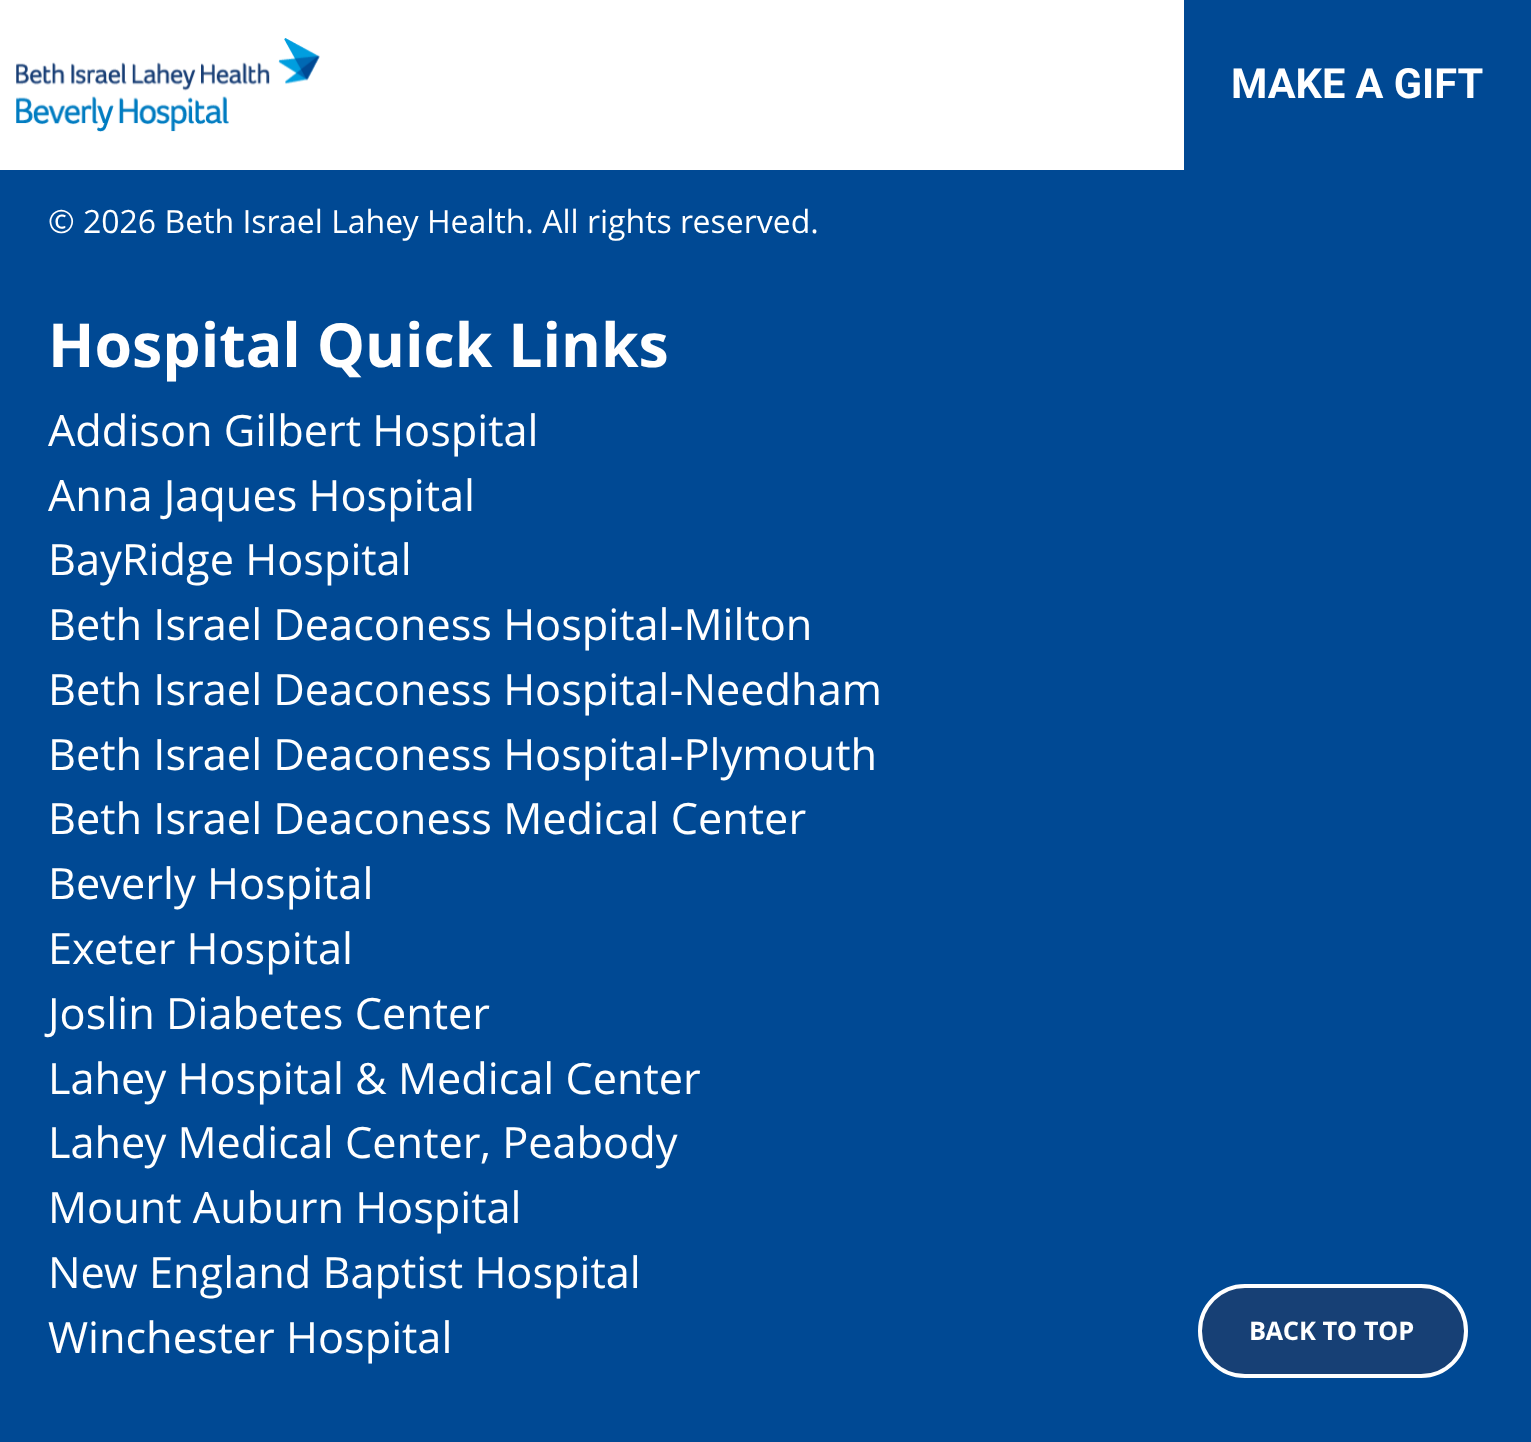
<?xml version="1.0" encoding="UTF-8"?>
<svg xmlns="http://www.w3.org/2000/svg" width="1531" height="1442">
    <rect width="100%" height="100%" fill="#004994"/>
    <rect x="0" y="0" width="1184" height="170" fill="#FFFFFF"/>
    <image x="16" y="38" width="304" height="94" href="img_01.png"/>
    <text x="1231" y="98" font-family="Roboto" font-size="41.5" font-weight="700" fill="#FFFFFF">MAKE A GIFT</text>
    <text x="48" y="233" font-family="Open Sans" font-size="32" fill="#FFFFFF">© 2026 Beth Israel Lahey Health. All rights reserved.</text>
    <text x="48" y="367" font-family="Open Sans" font-size="60.75" font-weight="700" fill="#FFFFFF">Hospital Quick Links</text>
    <text font-family="Open Sans" font-size="43.25" fill="#FFFFFF">
        <tspan x="48" y="446">Addison Gilbert Hospital</tspan>
        <tspan x="48" y="511">Anna Jaques Hospital</tspan>
        <tspan x="48" y="575">BayRidge Hospital</tspan>
        <tspan x="48" y="640">Beth Israel Deaconess Hospital-Milton</tspan>
        <tspan x="48" y="705">Beth Israel Deaconess Hospital-Needham</tspan>
        <tspan x="48" y="770">Beth Israel Deaconess Hospital-Plymouth</tspan>
        <tspan x="48" y="834">Beth Israel Deaconess Medical Center</tspan>
        <tspan x="48" y="899">Beverly Hospital</tspan>
        <tspan x="48" y="964">Exeter Hospital</tspan>
        <tspan x="48" y="1029">Joslin Diabetes Center</tspan>
        <tspan x="48" y="1094">Lahey Hospital &amp; Medical Center</tspan>
        <tspan x="48" y="1158">Lahey Medical Center, Peabody</tspan>
        <tspan x="48" y="1223">Mount Auburn Hospital</tspan>
        <tspan x="48" y="1288">New England Baptist Hospital</tspan>
        <tspan x="48" y="1353">Winchester Hospital</tspan>
    </text>
    <rect x="1200" y="1286" width="266" height="90" rx="45" fill="#174075" stroke="#FFFFFF" stroke-width="4"/>
    <text x="1249" y="1340" font-family="Open Sans" font-size="25.5" font-weight="700" fill="#FFFFFF">BACK TO TOP</text>
</svg>
